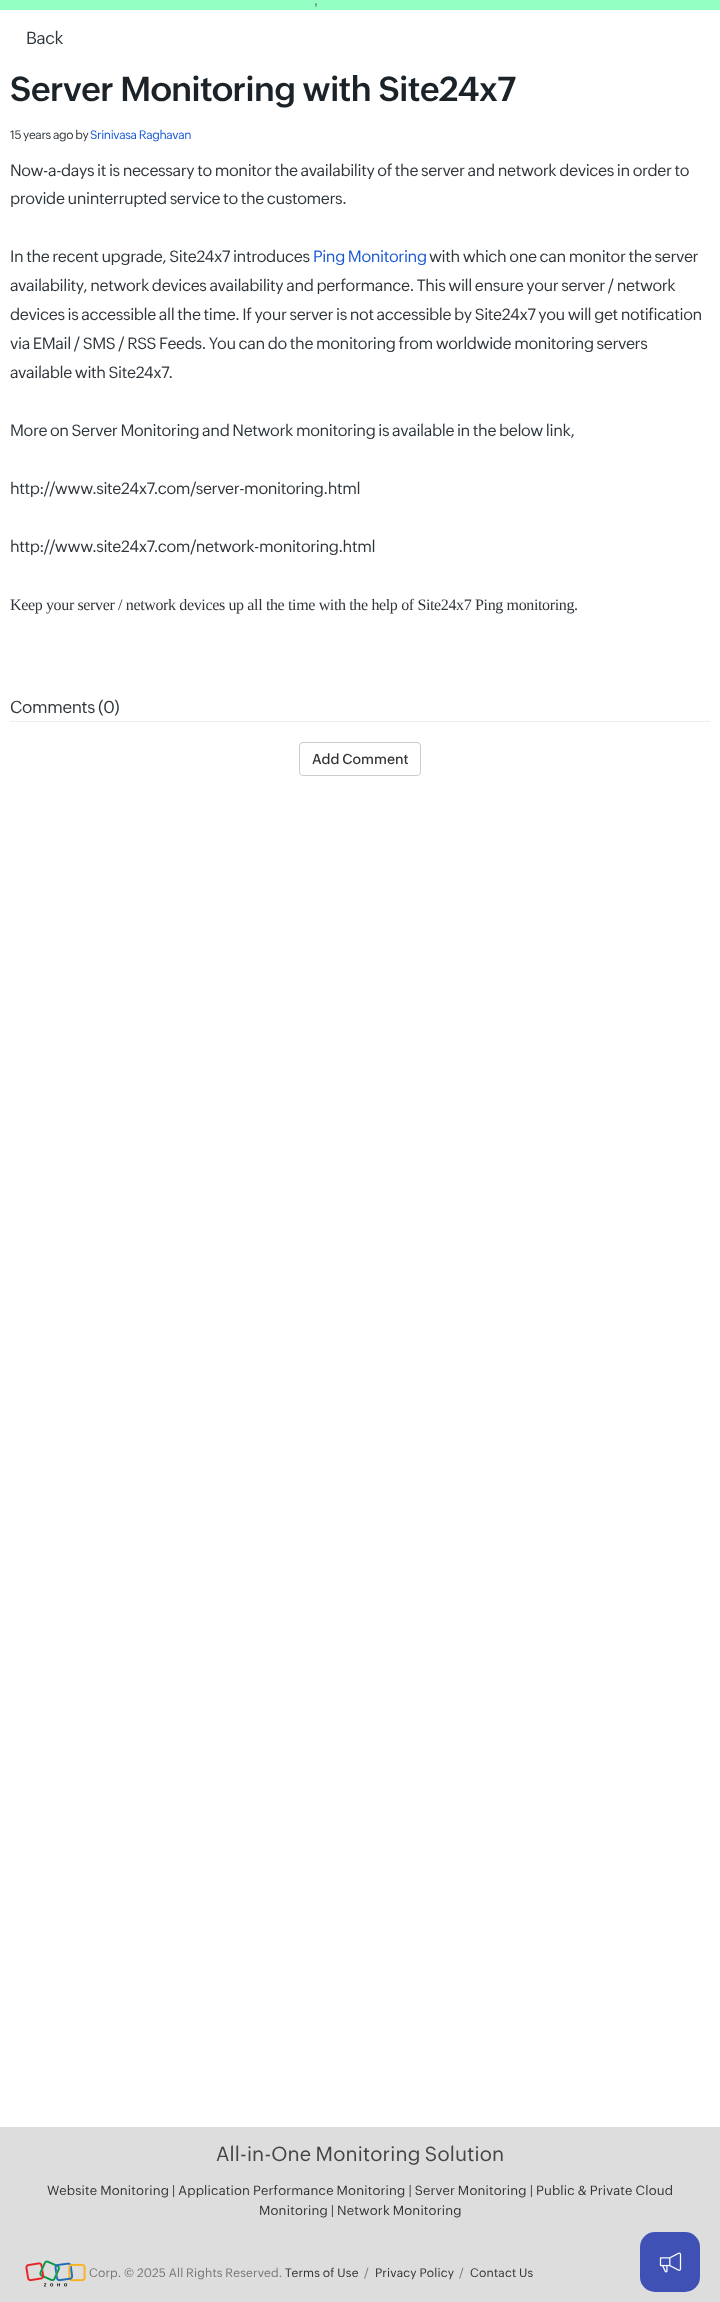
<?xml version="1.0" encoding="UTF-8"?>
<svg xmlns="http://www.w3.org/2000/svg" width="720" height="2302">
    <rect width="100%" height="100%" fill="#FFFFFF"/>
    <rect x="0" y="0" width="720" height="10" fill="#94FFC3"/>
    <text x="314" y="5" font-family="Liberation Sans" font-size="14" letter-spacing="0.2" fill="#4B6552">,</text>
    <text x="26" y="44" font-family="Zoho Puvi" font-size="17" letter-spacing="-0.36" fill="#30373C">Back</text>
    <text x="10" y="101" font-family="Zoho Puvi" font-size="34" font-weight="600" letter-spacing="-0.36" fill="#1B2329">Server Monitoring with Site24x7</text>
    <text x="10" y="139" font-family="Zoho Puvi" font-size="12" letter-spacing="-0.36" fill="#30373C">15 years ago by</text>
    <text x="90" y="139" font-family="Zoho Puvi" font-size="12" letter-spacing="-0.36" fill="#1958D7">Srinivasa Raghavan</text>
    <text font-family="Zoho Puvi" font-size="16" letter-spacing="-0.36" fill="#30373C">
        <tspan x="10" y="176">Now-a-days it is necessary to monitor the availability of the server and network devices in order to</tspan>
        <tspan x="10" y="204">provide uninterrupted service to the customers.</tspan>
    </text>
    <text x="10" y="262" font-family="Zoho Puvi" font-size="16" letter-spacing="-0.36" fill="#30373C">In the recent upgrade, Site24x7 introduces</text>
    <text x="313" y="262" font-family="Zoho Puvi" font-size="16" letter-spacing="-0.36" fill="#1958D7">Ping Monitoring</text>
    <text x="429" y="262" font-family="Zoho Puvi" font-size="16" letter-spacing="-0.36" fill="#30373C">with which one can monitor the server</text>
    <text font-family="Zoho Puvi" font-size="16" letter-spacing="-0.36" fill="#30373C">
        <tspan x="10" y="291">availability, network devices availability and performance. This will ensure your server / network</tspan>
        <tspan x="10" y="320">devices is accessible all the time. If your server is not accessible by Site24x7 you will get notification</tspan>
        <tspan x="10" y="349">via EMail / SMS / RSS Feeds. You can do the monitoring from worldwide monitoring servers</tspan>
        <tspan x="10" y="378">available with Site24x7.</tspan>
    </text>
    <text x="10" y="436" font-family="Zoho Puvi" font-size="16" letter-spacing="-0.36" fill="#30373C">More on Server Monitoring and Network monitoring is available in the below link,</text>
    <text x="10" y="494" font-family="Zoho Puvi" font-size="16" letter-spacing="-0.36" fill="#30373C">http://www.site24x7.com/server-monitoring.html</text>
    <text x="10" y="552" font-family="Zoho Puvi" font-size="16" letter-spacing="-0.36" fill="#30373C">http://www.site24x7.com/network-monitoring.html</text>
    <text x="10" y="610" font-family="Liberation Serif" font-size="16" letter-spacing="-0.36" fill="#30373C">Keep your server / network devices up all the time with the help of Site24x7 Ping monitoring.</text>
    <text x="10" y="713" font-family="Zoho Puvi" font-size="17" letter-spacing="-0.36" fill="#30373C">Comments (0)</text>
    <rect x="10" y="721" width="700" height="1" fill="#EEEEEE"/>
    <rect x="299.5" y="742.5" width="121" height="33" rx="3.5" fill="none" stroke="#CCCCCC"/>
    <text x="312" y="764" font-family="Zoho Puvi" font-size="14" font-weight="500" fill="#333333">Add Comment</text>
    <rect x="0" y="2127" width="720" height="175" fill="#DDDDDD"/>
    <text x="216" y="2161" font-family="Zoho Puvi" font-size="20" letter-spacing="0.2" fill="#444444">All-in-One Monitoring Solution</text>
    <text x="47" y="2195" font-family="Zoho Puvi" font-size="13" letter-spacing="0.2" fill="#333333">Website Monitoring | Application Performance Monitoring | Server Monitoring | Public &amp; Private Cloud</text>
    <text x="259" y="2215" font-family="Zoho Puvi" font-size="13" letter-spacing="0.2" fill="#333333">Monitoring | Network Monitoring</text>
    <image x="25" y="2260" width="61" height="27" href="img_01.png"/>
    <text x="89" y="2277" font-family="Zoho Puvi" font-size="12" letter-spacing="0.2" fill="#777777">Corp. © 2025 All Rights Reserved.</text>
    <text x="285" y="2277" font-family="Zoho Puvi" font-size="12" letter-spacing="0.2" fill="#333333">Terms of Use</text>
    <text x="364" y="2277" font-family="Zoho Puvi" font-size="12" letter-spacing="0.2" fill="#777777">/</text>
    <text x="375" y="2277" font-family="Zoho Puvi" font-size="12" letter-spacing="0.2" fill="#333333">Privacy Policy</text>
    <text x="459" y="2277" font-family="Zoho Puvi" font-size="12" letter-spacing="0.2" fill="#777777">/</text>
    <text x="470" y="2277" font-family="Zoho Puvi" font-size="12" letter-spacing="0.2" fill="#333333">Contact Us</text>
    <rect x="640" y="2232" width="60" height="60" rx="15" fill="#3F51B5"/>
    <image x="659" y="2252" width="23" height="21" href="img_02.png"/>
</svg>
